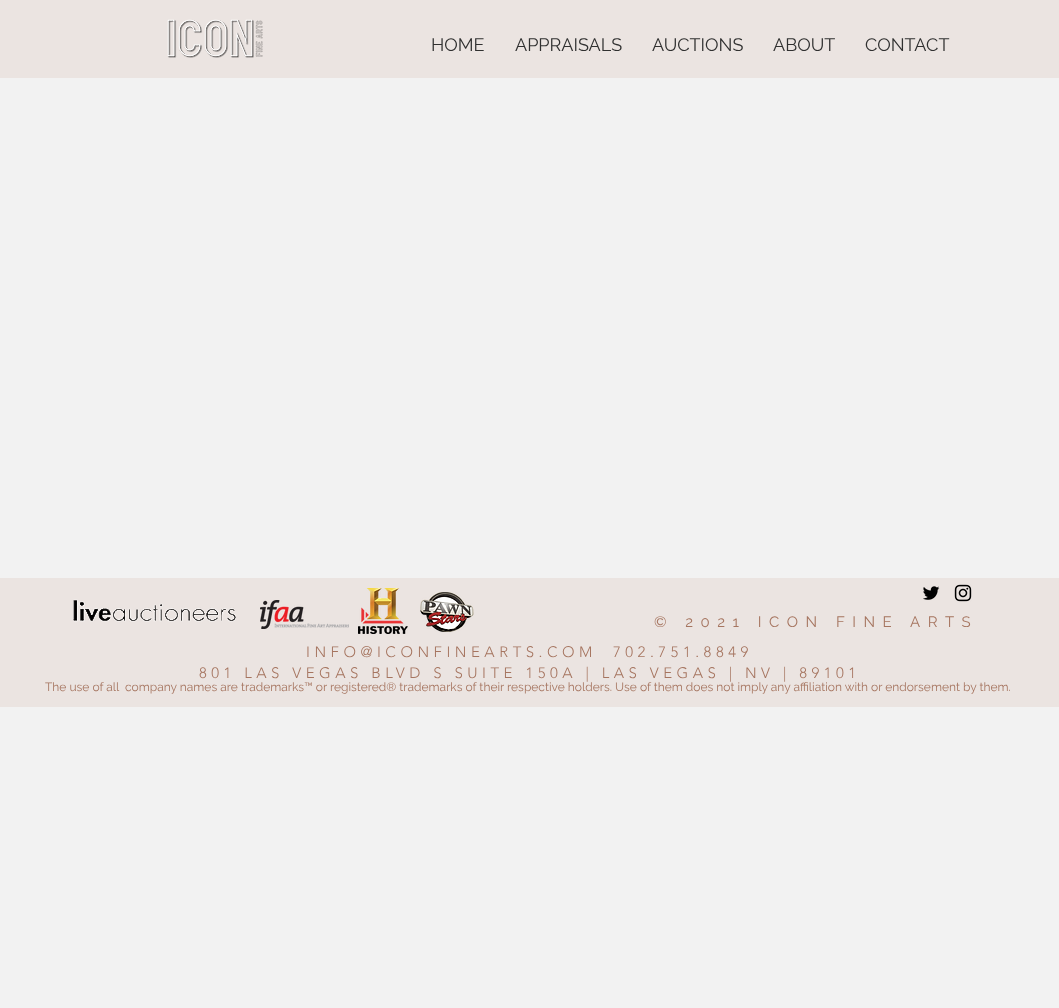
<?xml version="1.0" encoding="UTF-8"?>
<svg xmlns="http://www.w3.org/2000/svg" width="1059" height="1008">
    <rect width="100%" height="100%" fill="#F2F2F2"/>
    <rect x="0" y="0" width="1059" height="78" fill="#EBE4E1"/>
    <image x="167" y="19" width="96" height="39" href="img_01.png"/>
    <text x="431" y="51" font-family="Raleway" font-size="18" fill="#303030">HOME</text>
    <text x="515" y="51" font-family="Raleway" font-size="18" fill="#303030">APPRAISALS</text>
    <text x="652" y="51" font-family="Raleway" font-size="18" fill="#303030">AUCTIONS</text>
    <text x="773" y="51" font-family="Raleway" font-size="18" fill="#303030">ABOUT</text>
    <text x="865" y="51" font-family="Raleway" font-size="18" fill="#303030">CONTACT</text>
    <rect x="0" y="578" width="1059" height="129" fill="#EBE4E1"/>
    <image x="73" y="599" width="163" height="23" href="img_02.png"/>
    <image x="260" y="600" width="89" height="29" href="img_03.png"/>
    <image x="358" y="588" width="50" height="46" href="img_04.png"/>
    <image x="420" y="592" width="54" height="40" href="img_05.png"/>
    <image x="923" y="586" width="17" height="14" href="img_06.png"/>
    <image x="954" y="584" width="18" height="18" href="img_07.png"/>
    <text x="654" y="627" font-family="Raleway" font-size="15" letter-spacing="7.5" fill="#A67560">© 2021 ICON FINE ARTS</text>
    <text x="306" y="657" font-family="'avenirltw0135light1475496'" font-size="15" font-weight="300" letter-spacing="4.5" fill="#A67560">INFO@ICONFINEARTS.COM</text>
    <text x="613" y="657" font-family="'avenirltw0135light1475496'" font-size="15" font-weight="300" letter-spacing="4.5" fill="#A67560">702.751.8849</text>
    <text x="199" y="678" font-family="'avenirltw0135light1475496'" font-size="15" font-weight="300" letter-spacing="4.5" fill="#A67560">801 LAS VEGAS BLVD S SUITE 150A | LAS VEGAS | NV | 89101</text>
    <text x="45" y="691" font-family="Raleway" font-size="12" fill="#A67560" xml:space="preserve">The use of all  company names are trademarks™ or registered® trademarks of their respective holders. Use of them does not imply any affiliation with or endorsement by them.</text>
</svg>
